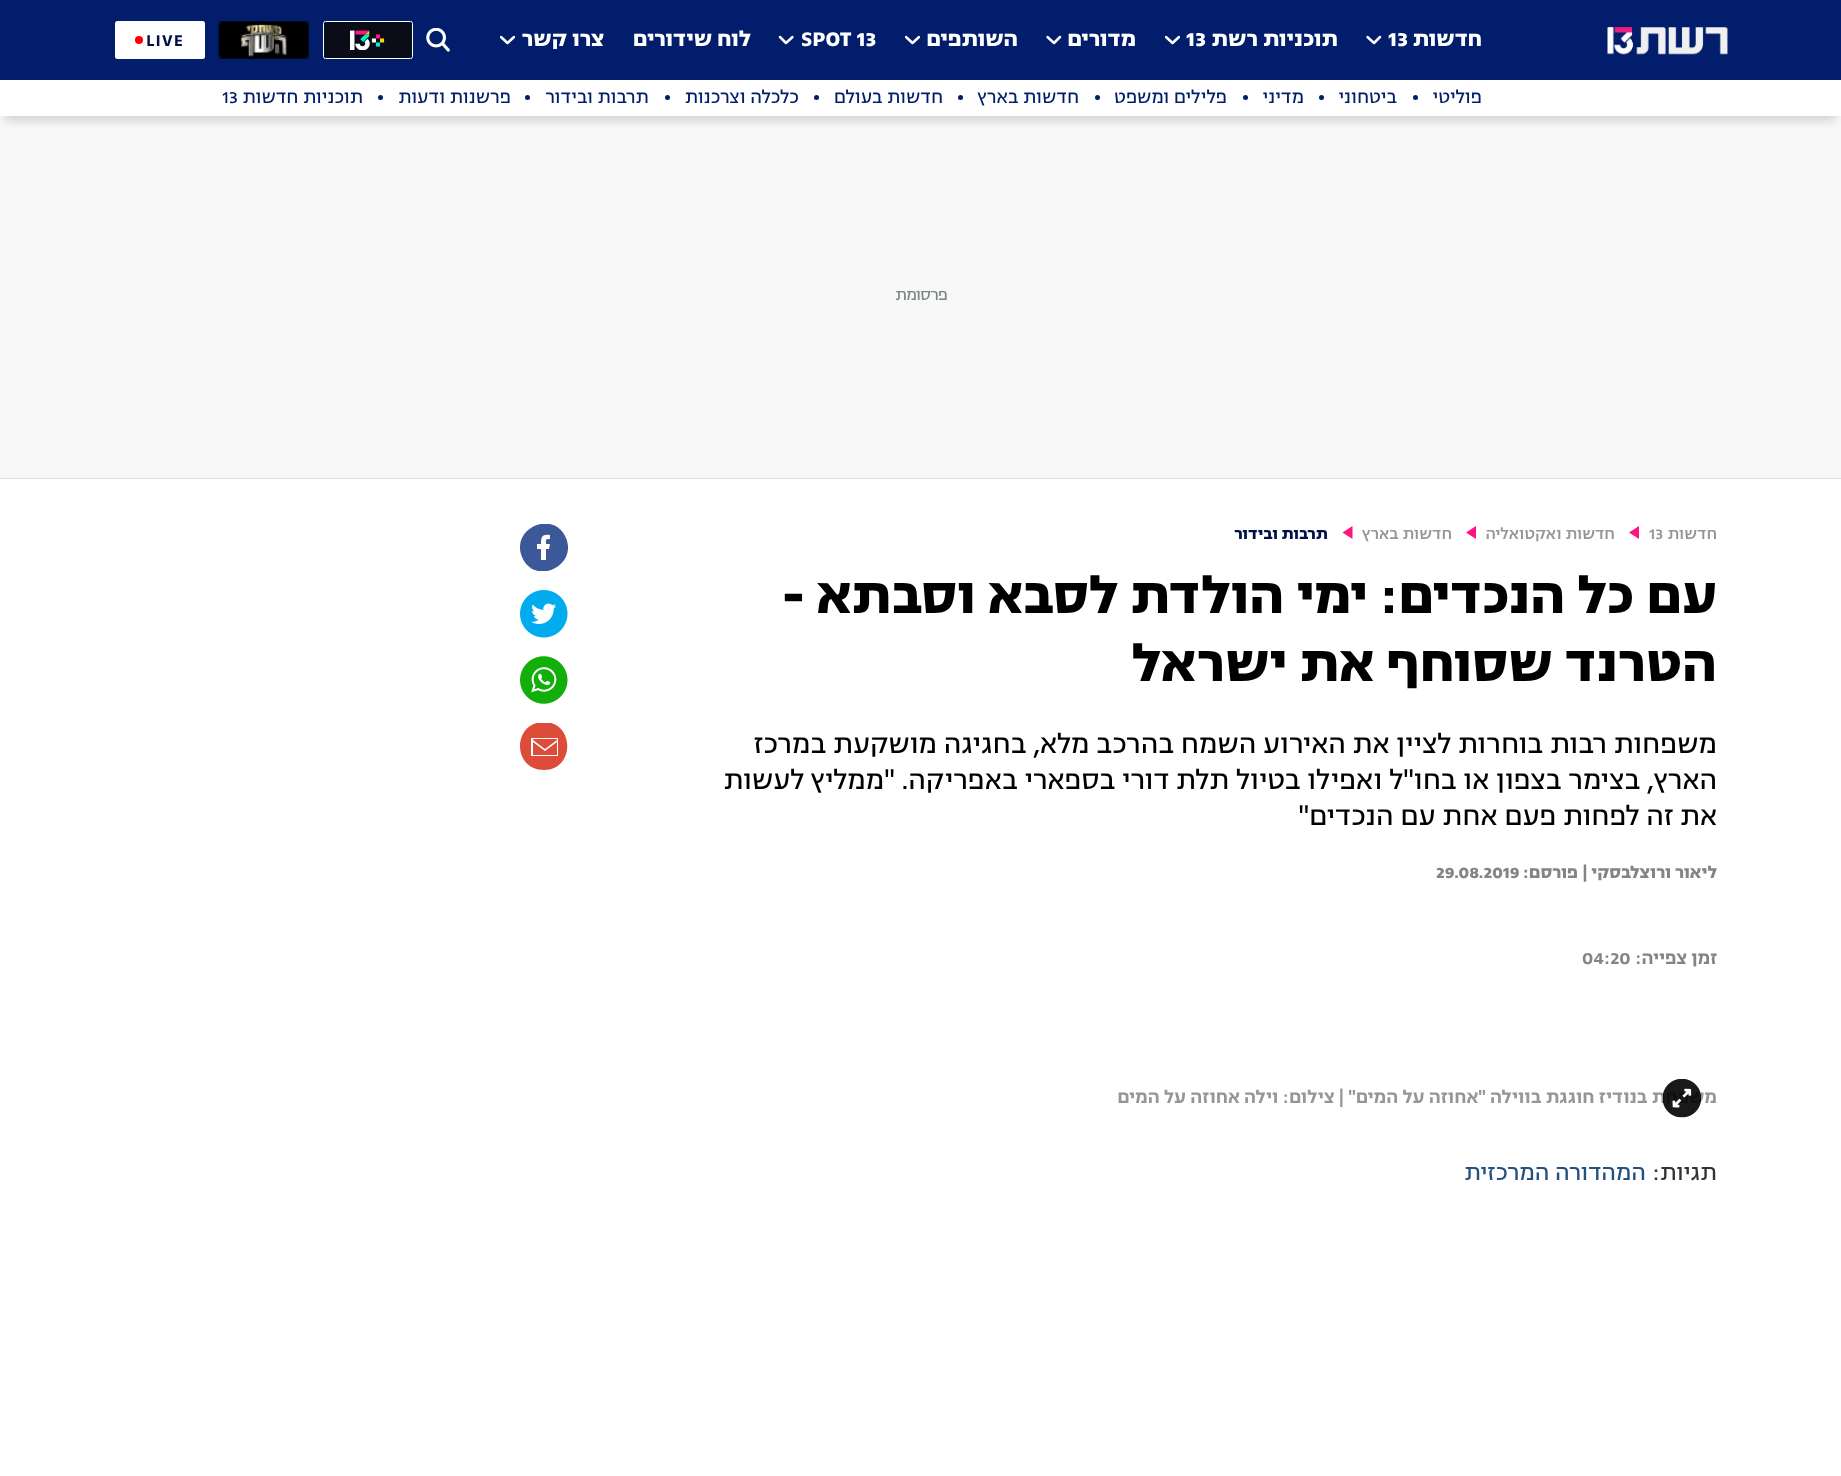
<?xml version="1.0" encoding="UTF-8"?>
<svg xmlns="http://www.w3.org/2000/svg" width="1841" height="1476">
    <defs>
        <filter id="blur1" x="-50%" y="-200%" width="200%" height="500%"><feGaussianBlur stdDeviation="5"/></filter>
        <clipPath id="clip1"><rect x="1165" y="35" width="15" height="10"/></clipPath>
        <clipPath id="clip2"><rect x="905" y="35" width="15" height="10"/></clipPath>
        <clipPath id="clip3"><rect x="500" y="35" width="15" height="10"/></clipPath>
        <clipPath id="clip4"><rect x="520" y="524" width="48" height="47"/></clipPath>
        <clipPath id="clip5"><rect x="520" y="723" width="48" height="47"/></clipPath>
    </defs>
    <rect width="100%" height="100%" fill="#FFFFFF"/>
    <rect x="0" y="116" width="1841" height="362" fill="#F8F8F8"/>
    <rect x="5" y="15" width="1831" height="106" fill="#D3D3D3" filter="url(#blur1)"/>
    <rect x="0" y="0" width="1841" height="80" fill="#011D6B"/>
    <image x="1607" y="26" width="121" height="29" href="img_01.png"/>
    <text x="1482" y="46" font-family="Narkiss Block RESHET" font-size="23.75" font-weight="700" direction="rtl" fill="#FFFFFF">חדשות</text>
    <text x="1388" y="46" font-family="Narkiss Block RESHET" font-size="23.75" font-weight="700" fill="#FFFFFF">13</text>
    <path d="M 1367.5 37 L 1374 43 L 1380 37" fill="none" stroke="#FFFFFF" stroke-width="2.5" stroke-linecap="round" stroke-linejoin="round"/>
    <text x="1338" y="46" font-family="Narkiss Block RESHET" font-size="23.75" font-weight="700" direction="rtl" fill="#FFFFFF">תוכניות רשת</text>
    <text x="1186" y="46" font-family="Narkiss Block RESHET" font-size="23.75" font-weight="700" fill="#FFFFFF">13</text>
    <g clip-path="url(#clip1)">
        <path d="M 1166 37 L 1172.5 43 L 1179 37" fill="none" stroke="#FFFFFF" stroke-width="2.5" stroke-linecap="round" stroke-linejoin="round"/>
    </g>
    <text x="1136" y="46" font-family="Narkiss Block RESHET" font-size="23.75" font-weight="700" direction="rtl" fill="#FFFFFF">מדורים</text>
    <path d="M 1047.5 37 L 1054 43 L 1060 37" fill="none" stroke="#FFFFFF" stroke-width="2.5" stroke-linecap="round" stroke-linejoin="round"/>
    <text x="1018" y="46" font-family="Narkiss Block RESHET" font-size="23.75" font-weight="700" direction="rtl" fill="#FFFFFF">השותפים</text>
    <g clip-path="url(#clip2)">
        <path d="M 906 37 L 912.5 43 L 919 37" fill="none" stroke="#FFFFFF" stroke-width="2.5" stroke-linecap="round" stroke-linejoin="round"/>
    </g>
    <text x="801" y="46" font-family="Narkiss Block RESHET" font-size="23.75" font-weight="700" fill="#FFFFFF">SPOT 13</text>
    <path d="M 780 37 L 786 43 L 792.5 37" fill="none" stroke="#FFFFFF" stroke-width="2.5" stroke-linecap="round" stroke-linejoin="round"/>
    <text x="751" y="46" font-family="Narkiss Block RESHET" font-size="23.75" font-weight="700" direction="rtl" fill="#FFFFFF">לוח שידורים</text>
    <text x="604" y="46" font-family="Narkiss Block RESHET" font-size="23.75" font-weight="700" direction="rtl" fill="#FFFFFF">צרו קשר</text>
    <g clip-path="url(#clip3)">
        <path d="M 501 37 L 507.5 43 L 514 37" fill="none" stroke="#FFFFFF" stroke-width="2.5" stroke-linecap="round" stroke-linejoin="round"/>
    </g>
    <image x="426" y="28" width="24" height="24" href="img_02.png"/>
    <rect x="323.5" y="21.5" width="89" height="37" rx="2" fill="#0A0C18" stroke="#FFFFFF"/>
    <image x="350" y="30" width="35" height="20" href="img_03.png"/>
    <image x="218" y="21" width="91" height="38" href="img_04.png"/>
    <rect x="115" y="21" width="90" height="38" rx="2.5" fill="#FFFFFF"/>
    <text x="146" y="46" font-family="Narkiss Block RESHET" font-size="18.75" font-weight="600" letter-spacing="1" fill="#00104A">LIVE</text>
    <circle cx="139" cy="40" r="4" fill="#FF0000"/>
    <rect x="0" y="80" width="1841" height="36" fill="#FFFFFF"/>
    <text x="1482" y="103" font-family="Narkiss Block RESHET" font-size="20" direction="rtl" fill="#011D6B">פוליטי</text>
    <circle cx="1415.5" cy="97.5" r="2.5" fill="#011D6B"/>
    <text x="1397" y="103" font-family="Narkiss Block RESHET" font-size="20" direction="rtl" fill="#011D6B">ביטחוני</text>
    <circle cx="1321.5" cy="97.5" r="2.5" fill="#011D6B"/>
    <text x="1304" y="103" font-family="Narkiss Block RESHET" font-size="20" direction="rtl" fill="#011D6B">מדיני</text>
    <circle cx="1245.5" cy="97.5" r="2.5" fill="#011D6B"/>
    <text x="1227" y="103" font-family="Narkiss Block RESHET" font-size="20" direction="rtl" fill="#011D6B">פלילים ומשפט</text>
    <circle cx="1097.5" cy="97.5" r="2.5" fill="#011D6B"/>
    <text x="1079" y="103" font-family="Narkiss Block RESHET" font-size="20" direction="rtl" fill="#011D6B">חדשות בארץ</text>
    <circle cx="960.5" cy="97.5" r="2.5" fill="#011D6B"/>
    <text x="943" y="103" font-family="Narkiss Block RESHET" font-size="20" direction="rtl" fill="#011D6B">חדשות בעולם</text>
    <circle cx="816.5" cy="97.5" r="2.5" fill="#011D6B"/>
    <text x="799" y="103" font-family="Narkiss Block RESHET" font-size="20" direction="rtl" fill="#011D6B">כלכלה וצרכנות</text>
    <circle cx="667.5" cy="97.5" r="2.5" fill="#011D6B"/>
    <text x="649" y="103" font-family="Narkiss Block RESHET" font-size="20" direction="rtl" fill="#011D6B">תרבות ובידור</text>
    <circle cx="527.5" cy="97.5" r="2.5" fill="#011D6B"/>
    <text x="511" y="103" font-family="Narkiss Block RESHET" font-size="20" direction="rtl" fill="#011D6B">פרשנות ודעות</text>
    <circle cx="380.5" cy="97.5" r="2.5" fill="#011D6B"/>
    <text x="363" y="103" font-family="Narkiss Block RESHET" font-size="20" direction="rtl" fill="#011D6B">תוכניות חדשות</text>
    <text x="222" y="103" font-family="Narkiss Block RESHET" font-size="20" fill="#011D6B">13</text>
    <rect x="0" y="478" width="1841" height="1" fill="#DFDFDF"/>
    <text x="947" y="300" font-family="Narkiss Block RESHET" font-size="17.5" letter-spacing="-0.75" direction="rtl" fill="#7B8588">פרסומת</text>
    <text x="1717" y="539" font-family="Narkiss Block RESHET" font-size="17.5" font-weight="500" direction="rtl" fill="#969696">חדשות</text>
    <text x="1649" y="539" font-family="Narkiss Block RESHET" font-size="17.5" font-weight="500" fill="#969696">13</text>
    <path d="M 1639 526 V 539 L 1629 532.5 Z" fill="#FF1380"/>
    <text x="1615" y="539" font-family="Narkiss Block RESHET" font-size="17.5" font-weight="500" direction="rtl" fill="#969696">חדשות ואקטואליה</text>
    <path d="M 1476 526 V 539 L 1466 532.5 Z" fill="#FF1380"/>
    <text x="1452" y="539" font-family="Narkiss Block RESHET" font-size="17.5" font-weight="500" direction="rtl" fill="#969696">חדשות בארץ</text>
    <path d="M 1352.5 526 V 539 L 1342.5 532.5 Z" fill="#FF1380"/>
    <text x="1328" y="539" font-family="Narkiss Block RESHET" font-size="17.5" font-weight="700" direction="rtl" fill="#00104A">תרבות ובידור</text>
    <text font-family="Narkiss Block RESHET" font-size="57.5" font-weight="700" direction="rtl" fill="#000000">
        <tspan x="1717" y="613">עם כל הנכדים: ימי הולדת לסבא וסבתא -</tspan>
        <tspan x="1717" y="681">הטרנד שסוחף את ישראל</tspan>
    </text>
    <text font-family="Narkiss Block RESHET" font-size="30" direction="rtl" fill="#000000">
        <tspan x="1717" y="753">משפחות רבות בוחרות לציין את האירוע השמח בהרכב מלא, בחגיגה מושקעת במרכז</tspan>
        <tspan x="1717" y="789">הארץ, בצימר בצפון או בחו"ל ואפילו בטיול תלת דורי בספארי באפריקה. "ממליץ לעשות</tspan>
        <tspan x="1717" y="825">את זה לפחות פעם אחת עם הנכדים"</tspan>
    </text>
    <text x="1717" y="878" font-family="Narkiss Block RESHET" font-size="18.75" font-weight="700" direction="rtl" fill="#848484">ליאור ורוצלבסקי |</text>
    <text x="1578" y="878" font-family="Narkiss Block RESHET" font-size="18.75" font-weight="700" direction="rtl" fill="#848484">פורסם:</text>
    <text x="1436" y="878" font-family="Narkiss Block RESHET" font-size="18.75" font-weight="700" fill="#848484">29.08.2019</text>
    <text x="1717" y="964" font-family="Narkiss Block RESHET" font-size="20" font-weight="600" direction="rtl" fill="#848484">זמן צפייה:</text>
    <text x="1582" y="964" font-family="Narkiss Block RESHET" font-size="20" font-weight="600" fill="#848484">04:20</text>
    <text x="1717" y="1103" font-family="Narkiss Block RESHET" font-size="20" font-weight="600" direction="rtl" fill="#969696">משפחת בנודיז חוגגת בווילה ''אחוזה על המים'' | צילום: וילה אחוזה על המים</text>
    <image x="1663" y="1079" width="38" height="39" href="img_05.png"/>
    <text x="1717" y="1180" font-family="Narkiss Block RESHET" font-size="25" direction="rtl" fill="#333333">תגיות:</text>
    <text x="1646" y="1180" font-family="Narkiss Block RESHET" font-size="25" direction="rtl" fill="#23527C">המהדורה המרכזית</text>
    <g clip-path="url(#clip4)">
        <path d="M 566 538 C 578 567 534 586 522 557 C 510 528 554 509 566 538 Z M 550 539 V 535 C 542 534 541 537 541 544 H 537 V 549 H 541 V 560 H 546 V 549 H 549 L 550 544 H 546 C 546 540 545 539 550 539 Z" fill="#3B5998"/>
    </g>
    <image x="520" y="590" width="48" height="48" href="img_06.png"/>
    <image x="520" y="656" width="48" height="48" href="img_07.png"/>
    <g clip-path="url(#clip5)">
        <path d="M 544 770 C 575 770 575 722 544 722 C 512 722 512 770 544 770 Z M 531 738 H 558 V 756 H 531 Z M 533 739 V 740 L 545 749 L 557 740 V 739 Z M 533 742 V 755 H 557 V 742 L 545 751 Z" fill="#DD4B39" fill-rule="evenodd"/>
    </g>
</svg>
